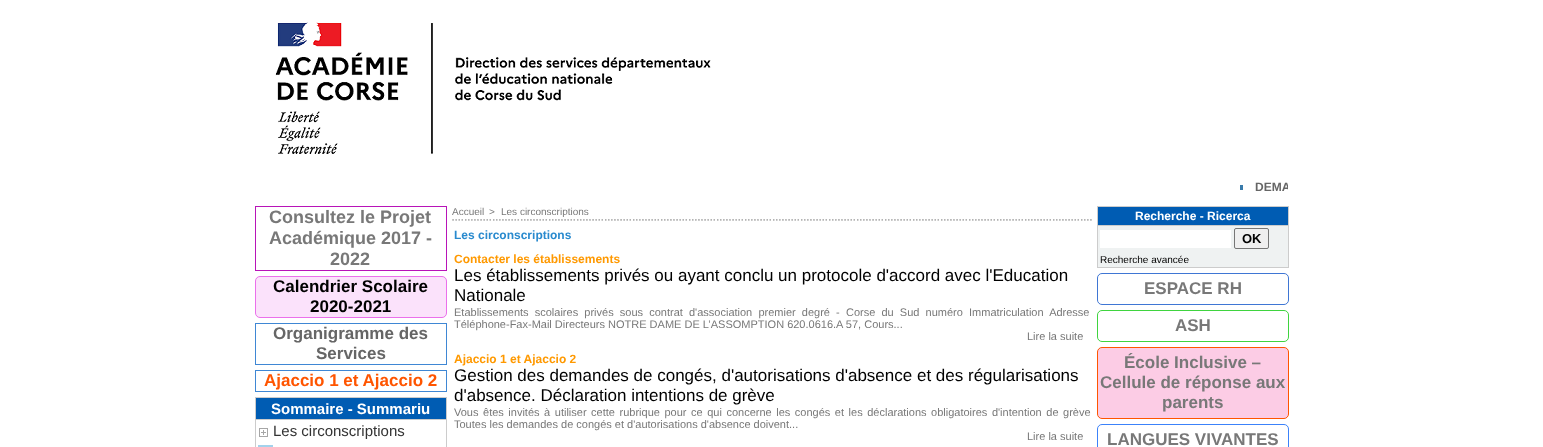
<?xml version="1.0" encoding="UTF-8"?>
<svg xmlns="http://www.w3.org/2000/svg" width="1543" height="447">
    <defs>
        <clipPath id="clip1"><rect x="256" y="180" width="1032" height="14"/></clipPath>
    </defs>
    <rect width="100%" height="100%" fill="#FFFFFF"/>
    <image x="275" y="22" width="436" height="132" href="img_01.png"/>
    <rect x="1240" y="185" width="3" height="5" fill="#397BAB"/>
    <g clip-path="url(#clip1)">
        <text x="1255" y="191" font-family="Liberation Sans" font-size="12" font-weight="700" fill="#666666">DEMA</text>
    </g>
    <rect x="255.5" y="206.5" width="191" height="64" fill="none" stroke="#B814B8"/>
    <text font-family="Liberation Sans" font-size="18" font-weight="700" fill="#787878">
        <tspan x="269" y="223">Consultez le Projet</tspan>
        <tspan x="269" y="244">Académique 2017 -</tspan>
    </text>
    <text x="330" y="265" font-family="Liberation Sans" font-size="18" font-weight="700" fill="#787878">2022</text>
    <rect x="255.5" y="276.5" width="191" height="41" rx="4.5" fill="#FBE2FB" stroke="#EB70EB"/>
    <text x="273" y="292" font-family="Liberation Sans" font-size="17" font-weight="700" fill="#000000">Calendrier Scolaire</text>
    <text x="310" y="312" font-family="Liberation Sans" font-size="17" font-weight="700" fill="#000000">2020-2021</text>
    <rect x="255.5" y="323.5" width="191" height="41" fill="none" stroke="#3F87D4"/>
    <text x="273" y="339" font-family="Liberation Sans" font-size="17" font-weight="700" fill="#666666">Organigramme des</text>
    <text x="316" y="359" font-family="Liberation Sans" font-size="17" font-weight="700" fill="#666666">Services</text>
    <rect x="255.5" y="370.5" width="191" height="21" fill="none" stroke="#3F87D4"/>
    <text x="264" y="386" font-family="Liberation Sans" font-size="17" font-weight="700" fill="#FF5500">Ajaccio 1 et Ajaccio 2</text>
    <rect x="255.5" y="397.5" width="191" height="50" fill="none" stroke="#CCCCCC"/>
    <rect x="256" y="398" width="190" height="21" fill="#005CB3"/>
    <rect x="256" y="419" width="190" height="1" fill="#CCCCCC"/>
    <text x="271" y="414" font-family="Liberation Sans" font-size="15" font-weight="700" fill="#FFFFFF">Sommaire - Summariu</text>
    <image x="259" y="428" width="9" height="9" href="img_02.png"/>
    <text x="273" y="436" font-family="Liberation Sans" font-size="15" fill="#333333">Les circonscriptions</text>
    <rect x="258" y="445" width="15" height="2" fill="#A3D2EC"/>
    <text x="452" y="215" font-family="Liberation Sans" font-size="10" fill="#787878">Accueil</text>
    <text x="489" y="215" font-family="Liberation Sans" font-size="10" fill="#787878">&gt;</text>
    <text x="501" y="215" font-family="Liberation Sans" font-size="10" fill="#787878">Les circonscriptions</text>
    <image x="452" y="219" width="640" height="2" href="img_03.png"/>
    <text x="454" y="239" font-family="Liberation Sans" font-size="12" font-weight="700" fill="#298ACE">Les circonscriptions</text>
    <text x="454" y="263" font-family="Liberation Sans" font-size="12" font-weight="700" fill="#FF9900">Contacter les établissements</text>
    <text font-family="Liberation Sans" font-size="17" fill="#000000">
        <tspan x="454" y="281">Les établissements privés ou ayant conclu un protocole d'accord avec l'Education</tspan>
        <tspan x="454" y="301">Nationale</tspan>
    </text>
    <text font-family="Liberation Sans" font-size="11" fill="#787878">
        <tspan x="454" y="316" word-spacing="3.1">Etablissements scolaires privés sous contrat d'association premier degré - Corse du Sud numéro Immatriculation Adresse</tspan>
        <tspan x="454" y="328">Téléphone-Fax-Mail Directeurs NOTRE DAME DE L’ASSOMPTION 620.0616.A 57, Cours...</tspan>
    </text>
    <text x="1027" y="340" font-family="Liberation Sans" font-size="11" fill="#787878">Lire la suite</text>
    <text x="454" y="363" font-family="Liberation Sans" font-size="12" font-weight="700" fill="#FF9900">Ajaccio 1 et Ajaccio 2</text>
    <text font-family="Liberation Sans" font-size="17" fill="#000000">
        <tspan x="454" y="381">Gestion des demandes de congés, d'autorisations d'absence et des régularisations</tspan>
        <tspan x="454" y="401">d'absence. Déclaration intentions de grève</tspan>
    </text>
    <text font-family="Liberation Sans" font-size="11" fill="#787878">
        <tspan x="454" y="416" word-spacing="1.5">Vous êtes invités à utiliser cette rubrique pour ce qui concerne les congés et les déclarations obligatoires d'intention de grève</tspan>
        <tspan x="454" y="428">Toutes les demandes de congés et d'autorisations d'absence doivent...</tspan>
    </text>
    <text x="1027" y="440" font-family="Liberation Sans" font-size="11" fill="#787878">Lire la suite</text>
    <rect x="1097" y="206" width="192" height="1" fill="#CCCCCC"/>
    <rect x="1098" y="207" width="190" height="18" fill="#005CB3"/>
    <rect x="1288" y="207" width="1" height="61" fill="#CCCCCC"/>
    <rect x="1097" y="225" width="192" height="1" fill="#CCCCCC"/>
    <rect x="1097" y="207" width="1" height="19" fill="#CCCCCC"/>
    <text x="1135" y="220" font-family="Liberation Sans" font-size="12" font-weight="700" fill="#FFFFFF">Recherche - Ricerca</text>
    <rect x="1098" y="226" width="190" height="41" fill="#EFF2F2"/>
    <rect x="1097" y="267" width="192" height="1" fill="#CCCCCC"/>
    <rect x="1097" y="226" width="1" height="42" fill="#CCCCCC"/>
    <rect x="1100" y="230" width="131" height="18" fill="#FFFFFF"/>
    <rect x="1234.5" y="228.5" width="34" height="20" rx="1.5" fill="#EFEFEF" stroke="#767676"/>
    <text x="1242" y="243" font-family="Liberation Sans" font-size="13" font-weight="700" fill="#000000">OK</text>
    <text x="1100" y="263" font-family="Liberation Sans" font-size="10" fill="#000000">Recherche avancée</text>
    <rect x="1097.5" y="273.5" width="191" height="31" rx="4.5" fill="none" stroke="#3F76D4"/>
    <text x="1144" y="294" font-family="Liberation Sans" font-size="17" font-weight="700" fill="#787878">ESPACE RH</text>
    <rect x="1097.5" y="310.5" width="191" height="31" rx="4.5" fill="none" stroke="#3FD43F"/>
    <text x="1175" y="331" font-family="Liberation Sans" font-size="17" font-weight="700" fill="#787878">ASH</text>
    <rect x="1097.5" y="347.5" width="191" height="71" rx="4.5" fill="#FCCCE5" stroke="#FF5500"/>
    <text x="1124" y="368" font-family="Liberation Sans" font-size="17" font-weight="700" fill="#787878">École Inclusive –</text>
    <text x="1100" y="388" font-family="Liberation Sans" font-size="17" font-weight="700" fill="#787878">Cellule de réponse aux</text>
    <text x="1162" y="408" font-family="Liberation Sans" font-size="17" font-weight="700" fill="#787878">parents</text>
    <rect x="1097.5" y="424.5" width="191" height="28" rx="4.5" fill="none" stroke="#3C82FA"/>
    <text x="1107" y="445" font-family="Liberation Sans" font-size="17" font-weight="700" fill="#787878">LANGUES VIVANTES</text>
</svg>
